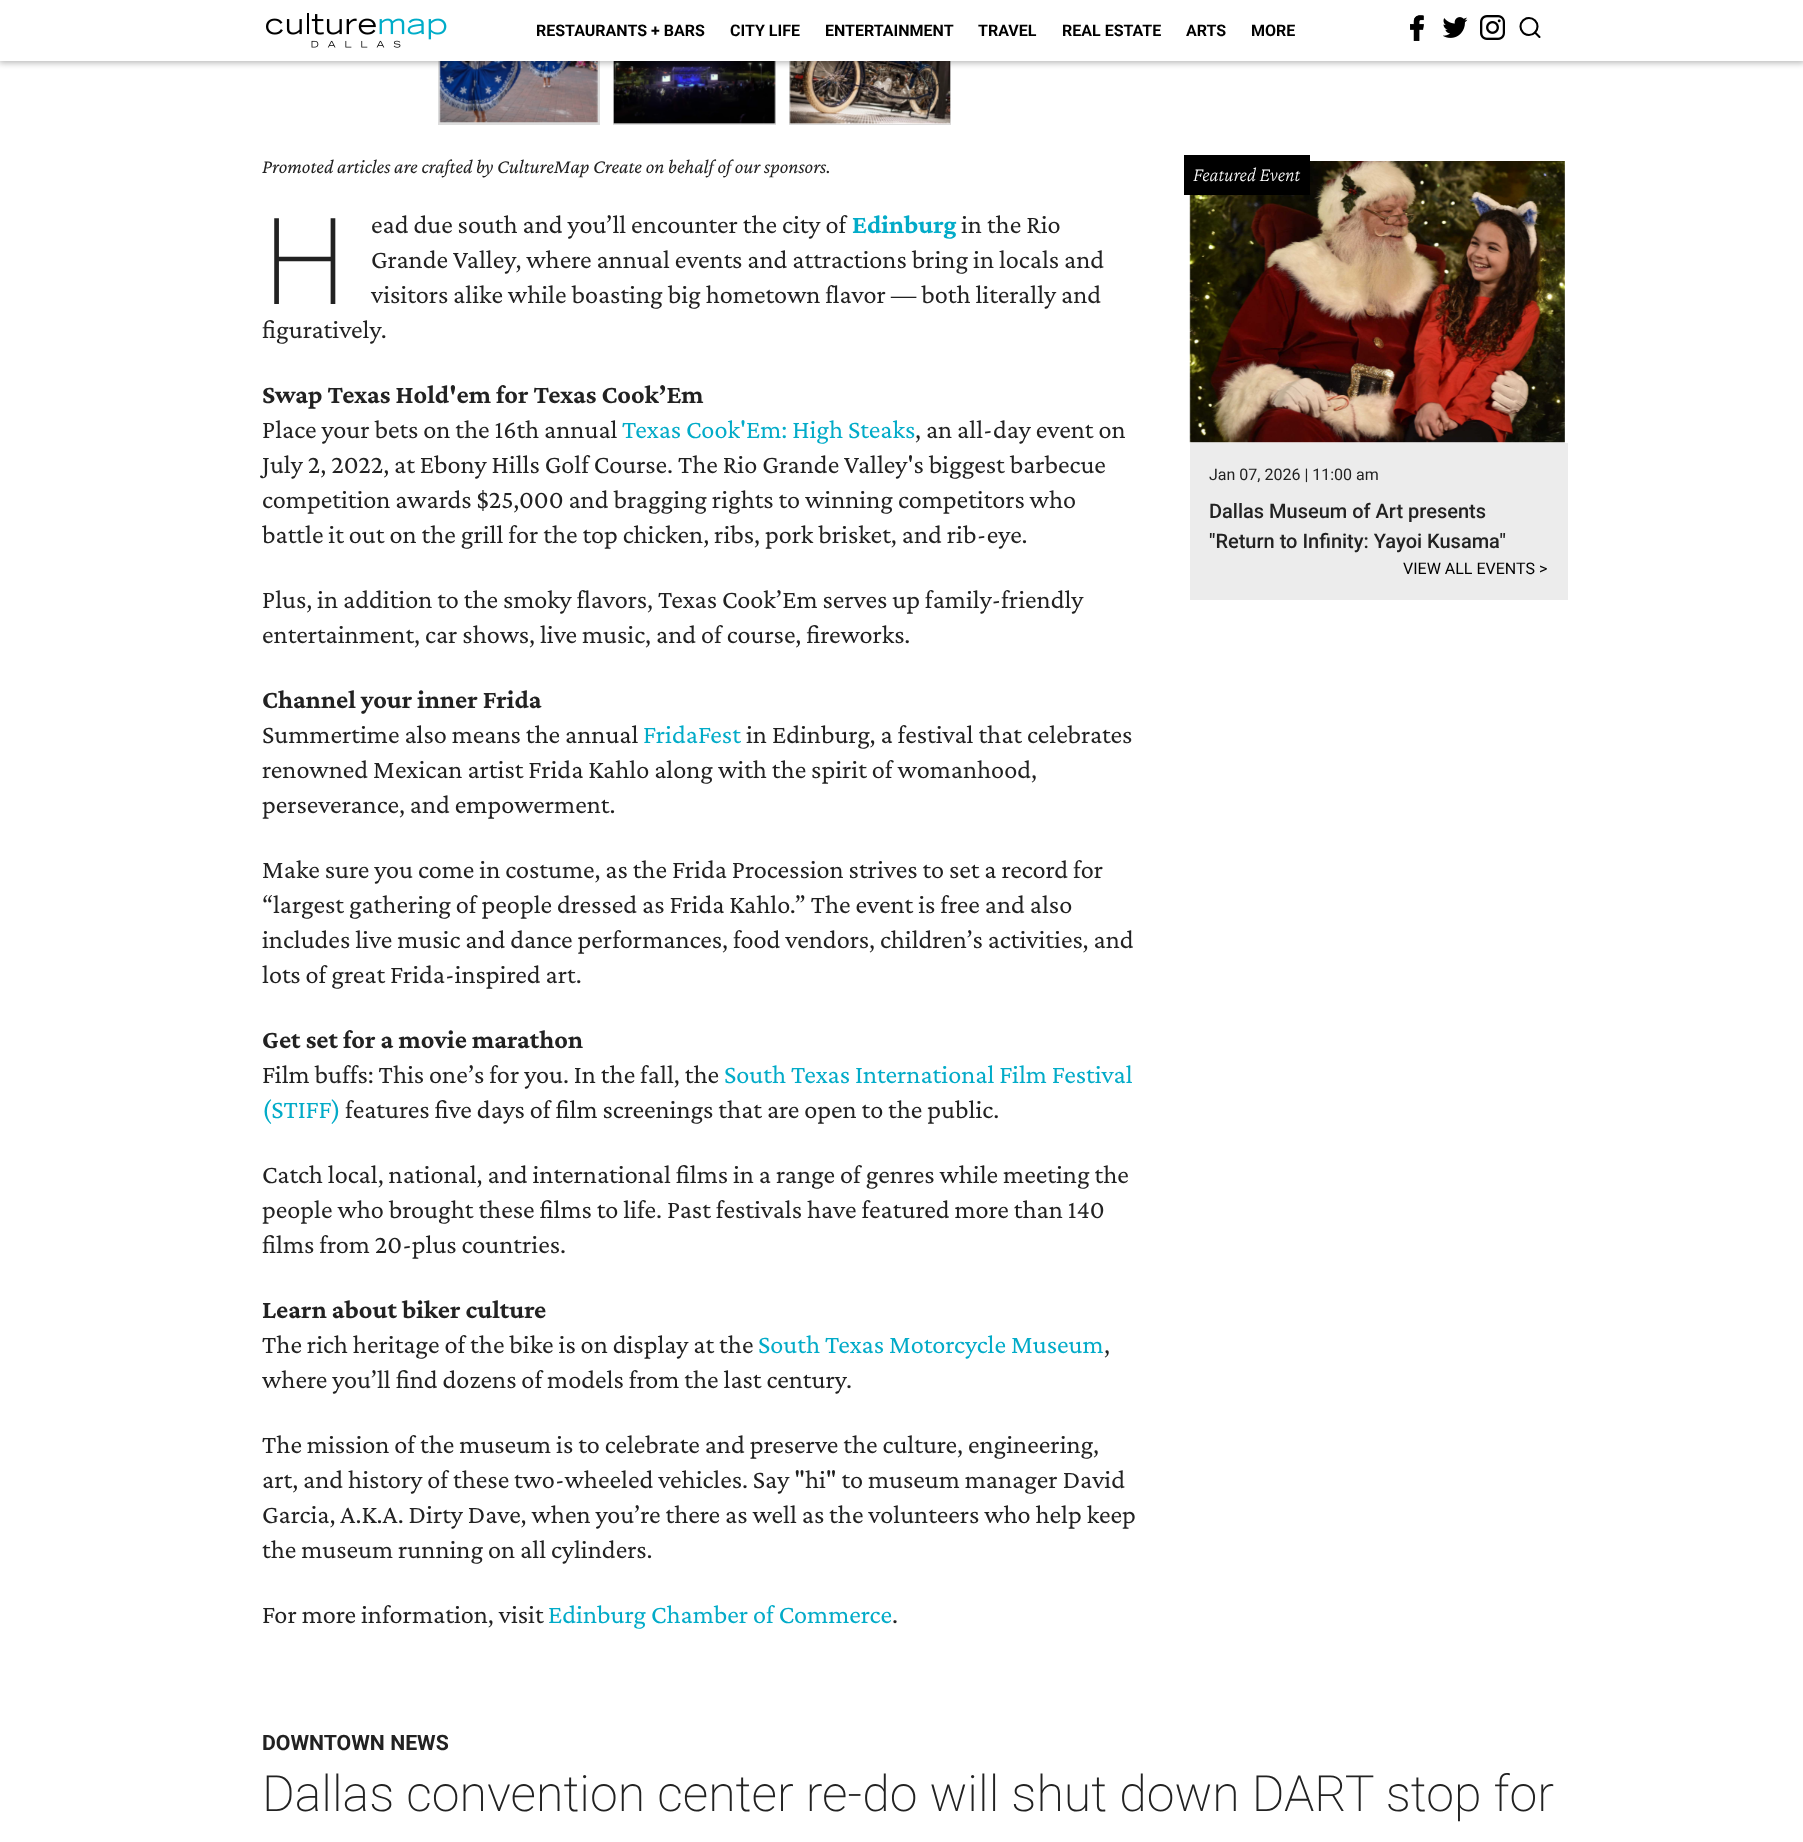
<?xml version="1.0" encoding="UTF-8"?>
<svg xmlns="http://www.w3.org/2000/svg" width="1803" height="1842">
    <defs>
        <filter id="blur1" x="-50%" y="-200%" width="200%" height="500%"><feGaussianBlur stdDeviation="3"/></filter>
    </defs>
    <rect width="100%" height="100%" fill="#FFFFFF"/>
    <rect x="439.5" y="4.5" width="159" height="119" fill="none" stroke="#DCDCDC" stroke-width="3"/>
    <image x="439" y="61" width="159" height="62" href="img_05.png"/>
    <rect x="613.5" y="3.5" width="162" height="121" fill="none" stroke="#DCDCDC"/>
    <image x="613" y="61" width="163" height="63" href="img_06.png"/>
    <rect x="789.5" y="3.5" width="161" height="121" fill="none" stroke="#DCDCDC"/>
    <image x="789" y="61" width="162" height="63" href="img_07.png"/>
    <rect x="-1" y="-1" width="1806" height="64" fill="#000000" fill-opacity="0.28" filter="url(#blur1)"/>
    <rect x="0" y="0" width="1803" height="61" fill="#FFFFFF"/>
    <image x="266" y="13" width="181" height="35" href="img_01.png"/>
    <text x="536" y="36" font-family="Roboto" font-size="16" font-weight="700" fill="#000000">RESTAURANTS + BARS</text>
    <text x="730" y="36" font-family="Roboto" font-size="16" font-weight="700" fill="#000000">CITY LIFE</text>
    <text x="825" y="36" font-family="Roboto" font-size="16" font-weight="700" fill="#000000">ENTERTAINMENT</text>
    <text x="978" y="36" font-family="Roboto" font-size="16" font-weight="700" fill="#000000">TRAVEL</text>
    <text x="1062" y="36" font-family="Roboto" font-size="16" font-weight="700" fill="#000000">REAL ESTATE</text>
    <text x="1186" y="36" font-family="Roboto" font-size="16" font-weight="700" fill="#000000">ARTS</text>
    <text x="1251" y="36" font-family="Roboto" font-size="16" font-weight="700" fill="#000000">MORE</text>
    <image x="1410" y="15" width="14" height="26" href="img_02.png"/>
    <image x="1443" y="17" width="25" height="21" href="img_03.png"/>
    <image x="1480" y="15" width="25" height="25" href="img_04.png"/>
    <circle cx="1529" cy="26.5" r="8.5" fill="none" stroke="#000000" stroke-width="2.1"/>
    <path d="M 1539.5 37 L 1535 32.5" fill="none" stroke="#000000" stroke-width="2.1" stroke-linecap="round" stroke-linejoin="round"/>
    <text x="262" y="173" font-family="Crimson Pro" font-size="20" font-style="italic" fill="#222222">Promoted articles are crafted by CultureMap Create on behalf of our sponsors.</text>
    <text x="371" y="233" font-family="Crimson Pro" font-size="26.25" fill="#222222">ead due south and you’ll encounter the city of</text>
    <text x="852" y="233" font-family="Crimson Pro" font-size="26.25" font-weight="700" fill="#02ABC8">Edinburg</text>
    <text x="961" y="233" font-family="Crimson Pro" font-size="26.25" fill="#222222">in the Rio</text>
    <text font-family="Crimson Pro" font-size="26.25" fill="#222222">
        <tspan x="371" y="268">Grande Valley, where annual events and attractions bring in locals and</tspan>
        <tspan x="371" y="303">visitors alike while boasting big hometown flavor — both literally and</tspan>
    </text>
    <text x="262" y="338" font-family="Crimson Pro" font-size="26.25" fill="#222222">figuratively.</text>
    <text x="262" y="304" font-family="Noto Sans" font-size="120" font-weight="200" fill="#222222">H</text>
    <text x="262" y="403" font-family="Crimson Pro" font-size="26.25" font-weight="700" fill="#222222">Swap Texas Hold'em for Texas Cook’Em</text>
    <text x="262" y="438" font-family="Crimson Pro" font-size="26.25" fill="#222222">Place your bets on the 16th annual</text>
    <text x="622" y="438" font-family="Crimson Pro" font-size="26.25" fill="#02ABC8">Texas Cook'Em: High Steaks</text>
    <text x="915" y="438" font-family="Crimson Pro" font-size="26.25" fill="#222222">, an all-day event on</text>
    <text font-family="Crimson Pro" font-size="26.25" fill="#222222">
        <tspan x="262" y="473">July 2, 2022, at Ebony Hills Golf Course. The Rio Grande Valley's biggest barbecue</tspan>
        <tspan x="262" y="508">competition awards $25,000 and bragging rights to winning competitors who</tspan>
        <tspan x="262" y="543">battle it out on the grill for the top chicken, ribs, pork brisket, and rib-eye.</tspan>
    </text>
    <text font-family="Crimson Pro" font-size="26.25" fill="#222222">
        <tspan x="262" y="608">Plus, in addition to the smoky flavors, Texas Cook’Em serves up family-friendly</tspan>
        <tspan x="262" y="643">entertainment, car shows, live music, and of course, fireworks.</tspan>
    </text>
    <text x="262" y="708" font-family="Crimson Pro" font-size="26.25" font-weight="700" fill="#222222">Channel your inner Frida</text>
    <text x="262" y="743" font-family="Crimson Pro" font-size="26.25" fill="#222222">Summertime also means the annual</text>
    <text x="643" y="743" font-family="Crimson Pro" font-size="26.25" fill="#02ABC8">FridaFest</text>
    <text x="746" y="743" font-family="Crimson Pro" font-size="26.25" fill="#222222">in Edinburg, a festival that celebrates</text>
    <text font-family="Crimson Pro" font-size="26.25" fill="#222222">
        <tspan x="262" y="778">renowned Mexican artist Frida Kahlo along with the spirit of womanhood,</tspan>
        <tspan x="262" y="813">perseverance, and empowerment.</tspan>
    </text>
    <text font-family="Crimson Pro" font-size="26.25" fill="#222222">
        <tspan x="262" y="878">Make sure you come in costume, as the Frida Procession strives to set a record for</tspan>
        <tspan x="262" y="913">“largest gathering of people dressed as Frida Kahlo.” The event is free and also</tspan>
        <tspan x="262" y="948">includes live music and dance performances, food vendors, children’s activities, and</tspan>
        <tspan x="262" y="983">lots of great Frida-inspired art.</tspan>
    </text>
    <text x="262" y="1048" font-family="Crimson Pro" font-size="26.25" font-weight="700" fill="#222222">Get set for a movie marathon</text>
    <text x="262" y="1083" font-family="Crimson Pro" font-size="26.25" fill="#222222">Film buffs: This one’s for you. In the fall, the</text>
    <text x="724" y="1083" font-family="Crimson Pro" font-size="26.25" fill="#02ABC8">South Texas International Film Festival</text>
    <text x="262" y="1118" font-family="Crimson Pro" font-size="26.25" fill="#02ABC8">(STIFF)</text>
    <text x="345" y="1118" font-family="Crimson Pro" font-size="26.25" fill="#222222">features five days of film screenings that are open to the public.</text>
    <text font-family="Crimson Pro" font-size="26.25" fill="#222222">
        <tspan x="262" y="1183">Catch local, national, and international films in a range of genres while meeting the</tspan>
        <tspan x="262" y="1218">people who brought these films to life. Past festivals have featured more than 140</tspan>
        <tspan x="262" y="1253">films from 20-plus countries.</tspan>
    </text>
    <text x="262" y="1318" font-family="Crimson Pro" font-size="26.25" font-weight="700" fill="#222222">Learn about biker culture</text>
    <text x="262" y="1353" font-family="Crimson Pro" font-size="26.25" fill="#222222">The rich heritage of the bike is on display at the</text>
    <text x="758" y="1353" font-family="Crimson Pro" font-size="26.25" fill="#02ABC8">South Texas Motorcycle Museum</text>
    <text x="1104" y="1353" font-family="Crimson Pro" font-size="26.25" fill="#222222">,</text>
    <text x="262" y="1388" font-family="Crimson Pro" font-size="26.25" fill="#222222">where you’ll find dozens of models from the last century.</text>
    <text font-family="Crimson Pro" font-size="26.25" fill="#222222">
        <tspan x="262" y="1453">The mission of the museum is to celebrate and preserve the culture, engineering,</tspan>
        <tspan x="262" y="1488">art, and history of these two-wheeled vehicles. Say "hi" to museum manager David</tspan>
        <tspan x="262" y="1523">Garcia, A.K.A. Dirty Dave, when you’re there as well as the volunteers who help keep</tspan>
        <tspan x="262" y="1558">the museum running on all cylinders.</tspan>
    </text>
    <text x="262" y="1623" font-family="Crimson Pro" font-size="26.25" fill="#222222">For more information, visit</text>
    <text x="548" y="1623" font-family="Crimson Pro" font-size="26.25" fill="#02ABC8">Edinburg Chamber of Commerce</text>
    <text x="892" y="1623" font-family="Crimson Pro" font-size="26.25" fill="#222222">.</text>
    <image x="1189" y="161" width="376" height="282" href="img_08.png"/>
    <rect x="1184" y="155" width="126" height="40" fill="#000000"/>
    <text x="1193" y="181" font-family="Crimson Pro" font-size="20" font-weight="200" font-style="italic" fill="#FFFFFF">Featured Event</text>
    <rect x="1190" y="443" width="378" height="157" fill="#ECECEC"/>
    <text x="1209" y="480" font-family="Roboto" font-size="16" fill="#222222">Jan 07, 2026 | 11:00 am</text>
    <text font-family="Roboto" font-size="20" font-weight="500" fill="#222222">
        <tspan x="1209" y="518">Dallas Museum of Art presents</tspan>
        <tspan x="1209" y="548">"Return to Infinity: Yayoi Kusama"</tspan>
    </text>
    <text x="1403" y="574" font-family="Roboto" font-size="16" fill="#000000">VIEW ALL EVENTS &gt;</text>
    <text x="262" y="1750" font-family="Roboto" font-size="21.25" font-weight="700" fill="#222222">DOWNTOWN NEWS</text>
    <text x="262" y="1811" font-family="Roboto" font-size="50" font-weight="200" fill="#222222">Dallas convention center re-do will shut down DART stop for</text>
</svg>
